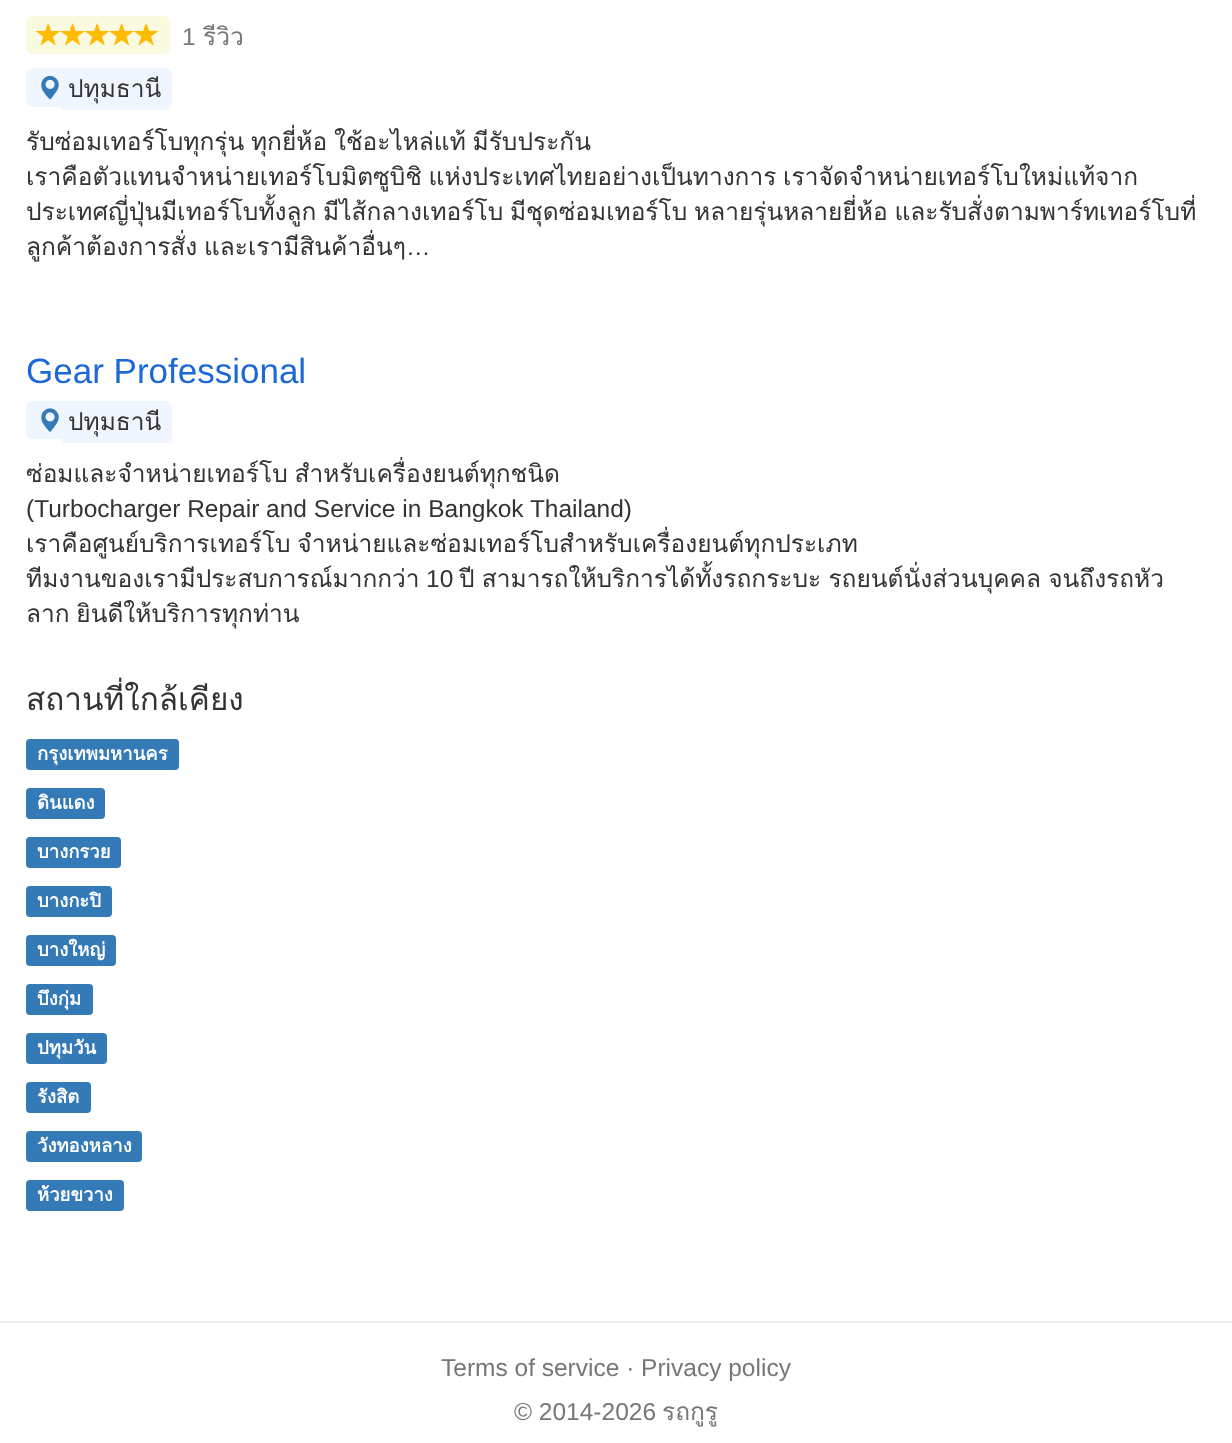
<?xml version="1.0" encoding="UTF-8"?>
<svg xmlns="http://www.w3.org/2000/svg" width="1232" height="1443">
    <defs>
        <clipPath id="clip1"><rect x="26" y="124" width="1180" height="140"/></clipPath>
        <clipPath id="clip2"><rect x="26" y="457" width="1180" height="175"/></clipPath>
    </defs>
    <rect width="100%" height="100%" fill="#FFFFFF"/>
    <path d="M 33 16 H 61 V 54 H 33 C 29 54 26 51 26 47 V 23 C 26 19 29 16 33 16 Z" fill="#FAFAE0"/>
    <rect x="61" y="16" width="74" height="38" fill="#FAFAE0"/>
    <path d="M 135 16 H 163 C 167 16 170 19 170 23 V 47 C 170 51 167 54 163 54 H 135 Z" fill="#FAFAE0"/>
    <image x="36" y="23" width="25" height="23" href="img_01.png"/>
    <image x="60" y="23" width="25" height="23" href="img_02.png"/>
    <image x="85" y="23" width="25" height="23" href="img_01.png"/>
    <image x="109" y="23" width="25" height="23" href="img_02.png"/>
    <image x="134" y="23" width="25" height="23" href="img_01.png"/>
    <text x="182" y="45" font-family="Liberation Sans" font-size="24.5" fill="#777777">1</text>
    <text x="203" y="45" font-family="Loma" font-size="24.5" fill="#777777">รีวิว</text>
    <path d="M 33 68 H 61 V 107 H 33 C 29 107 26 104 26 100 V 75 C 26 71 29 68 33 68 Z" fill="#F0F6FF"/>
    <path d="M 61 68 H 165 C 169 68 172 71 172 75 V 103 C 172 107 169 110 165 110 H 61 Z" fill="#F0F6FF"/>
    <image x="41" y="75" width="18" height="25" href="img_03.png"/>
    <text x="68" y="97" font-family="Loma" font-size="24.5" fill="#333333">ปทุมธานี</text>
    <g clip-path="url(#clip1)">
        <text x="26" y="150" word-spacing="-1.5" font-family="Loma" font-size="24.5" fill="#333333">รับซ่อมเทอร์โบทุกรุ่น ทุกยี่ห้อ ใช้อะไหล่แท้ มีรับประกัน</text>
    </g>
    <text font-family="Loma" font-size="24.5" fill="#333333">
        <tspan x="26" y="185" word-spacing="-1.5">เราคือตัวแทนจำหน่ายเทอร์โบมิตซูบิชิ แห่งประเทศไทยอย่างเป็นทางการ เราจัดจำหน่ายเทอร์โบใหม่แท้จาก</tspan>
        <tspan x="26" y="220" word-spacing="-1.5">ประเทศญี่ปุ่นมีเทอร์โบทั้งลูก มีไส้กลางเทอร์โบ มีชุดซ่อมเทอร์โบ หลายรุ่นหลายยี่ห้อ และรับสั่งตามพาร์ทเทอร์โบที่</tspan>
    </text>
    <g clip-path="url(#clip1)">
        <text x="26" y="255" word-spacing="-1.5" font-family="Loma" font-size="24.5" fill="#333333">ลูกค้าต้องการสั่ง และเรามีสินค้าอื่นๆ</text>
    </g>
    <text x="406" y="255" font-family="Liberation Sans" font-size="24.5" fill="#333333">…</text>
    <text x="26" y="383" font-family="Liberation Sans" font-size="35" fill="#1D68D7">Gear Professional</text>
    <path d="M 33 401 H 61 V 439 H 33 C 29 439 26 436 26 432 V 408 C 26 404 29 401 33 401 Z" fill="#F0F6FF"/>
    <path d="M 61 401 H 165 C 169 401 172 404 172 408 V 436 C 172 440 169 443 165 443 H 61 Z" fill="#F0F6FF"/>
    <image x="41" y="408" width="18" height="24" href="img_04.png"/>
    <text x="68" y="430" font-family="Loma" font-size="24.5" fill="#333333">ปทุมธานี</text>
    <g clip-path="url(#clip2)">
        <text x="26" y="482" word-spacing="-1.5" font-family="Loma" font-size="24.5" fill="#333333">ซ่อมและจำหน่ายเทอร์โบ สำหรับเครื่องยนต์ทุกชนิด</text>
    </g>
    <text x="26" y="517" font-family="Liberation Sans" font-size="24.5" fill="#333333">(Turbocharger Repair and Service in Bangkok Thailand)</text>
    <text x="26" y="552" word-spacing="-1.5" font-family="Loma" font-size="24.5" fill="#333333">เราคือศูนย์บริการเทอร์โบ จำหน่ายและซ่อมเทอร์โบสำหรับเครื่องยนต์ทุกประเภท</text>
    <g clip-path="url(#clip2)">
        <text x="26" y="587" font-family="Loma" font-size="24.5" fill="#333333">ทีมงานของเรามีประสบการณ์มากกว่า</text>
    </g>
    <text x="426" y="587" font-family="Liberation Sans" font-size="24.5" fill="#333333">10</text>
    <text x="459" y="587" word-spacing="-1" font-family="Loma" font-size="24.5" fill="#333333">ปี สามารถให้บริการได้ทั้งรถกระบะ รถยนต์นั่งส่วนบุคคล จนถึงรถหัว</text>
    <text x="26" y="622" word-spacing="-1.5" font-family="Loma" font-size="24.5" fill="#333333">ลาก ยินดีให้บริการทุกท่าน</text>
    <text x="26" y="710" font-family="Loma" font-size="31.5" fill="#333333">สถานที่ใกล้เคียง</text>
    <rect x="26" y="739" width="153" height="31" rx="4" fill="#337AB7"/>
    <text x="37" y="760" font-family="Loma" font-size="18.5" font-weight="700" fill="#FFFFFF">กรุงเทพมหานคร</text>
    <rect x="26" y="788" width="79" height="31" rx="4" fill="#337AB7"/>
    <text x="37" y="809" font-family="Loma" font-size="18.5" font-weight="700" fill="#FFFFFF">ดินแดง</text>
    <rect x="26" y="837" width="95" height="31" rx="4" fill="#337AB7"/>
    <text x="37" y="858" font-family="Loma" font-size="18.5" font-weight="700" fill="#FFFFFF">บางกรวย</text>
    <rect x="26" y="886" width="86" height="31" rx="4" fill="#337AB7"/>
    <text x="37" y="907" font-family="Loma" font-size="18.5" font-weight="700" fill="#FFFFFF">บางกะปิ</text>
    <rect x="26" y="935" width="90" height="31" rx="4" fill="#337AB7"/>
    <text x="37" y="956" font-family="Loma" font-size="18.5" font-weight="700" fill="#FFFFFF">บางใหญ่</text>
    <rect x="26" y="984" width="67" height="31" rx="4" fill="#337AB7"/>
    <text x="37" y="1005" font-family="Loma" font-size="18.5" font-weight="700" fill="#FFFFFF">บึงกุ่ม</text>
    <rect x="26" y="1033" width="81" height="31" rx="4" fill="#337AB7"/>
    <text x="37" y="1054" font-family="Loma" font-size="18.5" font-weight="700" fill="#FFFFFF">ปทุมวัน</text>
    <rect x="26" y="1082" width="65" height="31" rx="4" fill="#337AB7"/>
    <text x="37" y="1103" font-family="Loma" font-size="18.5" font-weight="700" fill="#FFFFFF">รังสิต</text>
    <rect x="26" y="1131" width="116" height="31" rx="4" fill="#337AB7"/>
    <text x="37" y="1152" font-family="Loma" font-size="18.5" font-weight="700" fill="#FFFFFF">วังทองหลาง</text>
    <rect x="26" y="1180" width="98" height="31" rx="4" fill="#337AB7"/>
    <text x="37" y="1201" font-family="Loma" font-size="18.5" font-weight="700" fill="#FFFFFF">ห้วยขวาง</text>
    <rect x="0" y="1321" width="1232" height="2" fill="#EEEEEE"/>
    <text x="441" y="1376" font-family="Liberation Sans" font-size="24.5" fill="#777777">Terms of service · Privacy policy</text>
    <text x="514" y="1420" font-family="Liberation Sans" font-size="24.5" fill="#777777">© 2014-2026</text>
    <text x="662" y="1420" font-family="Loma" font-size="24.5" fill="#777777">รถกูรู</text>
</svg>
